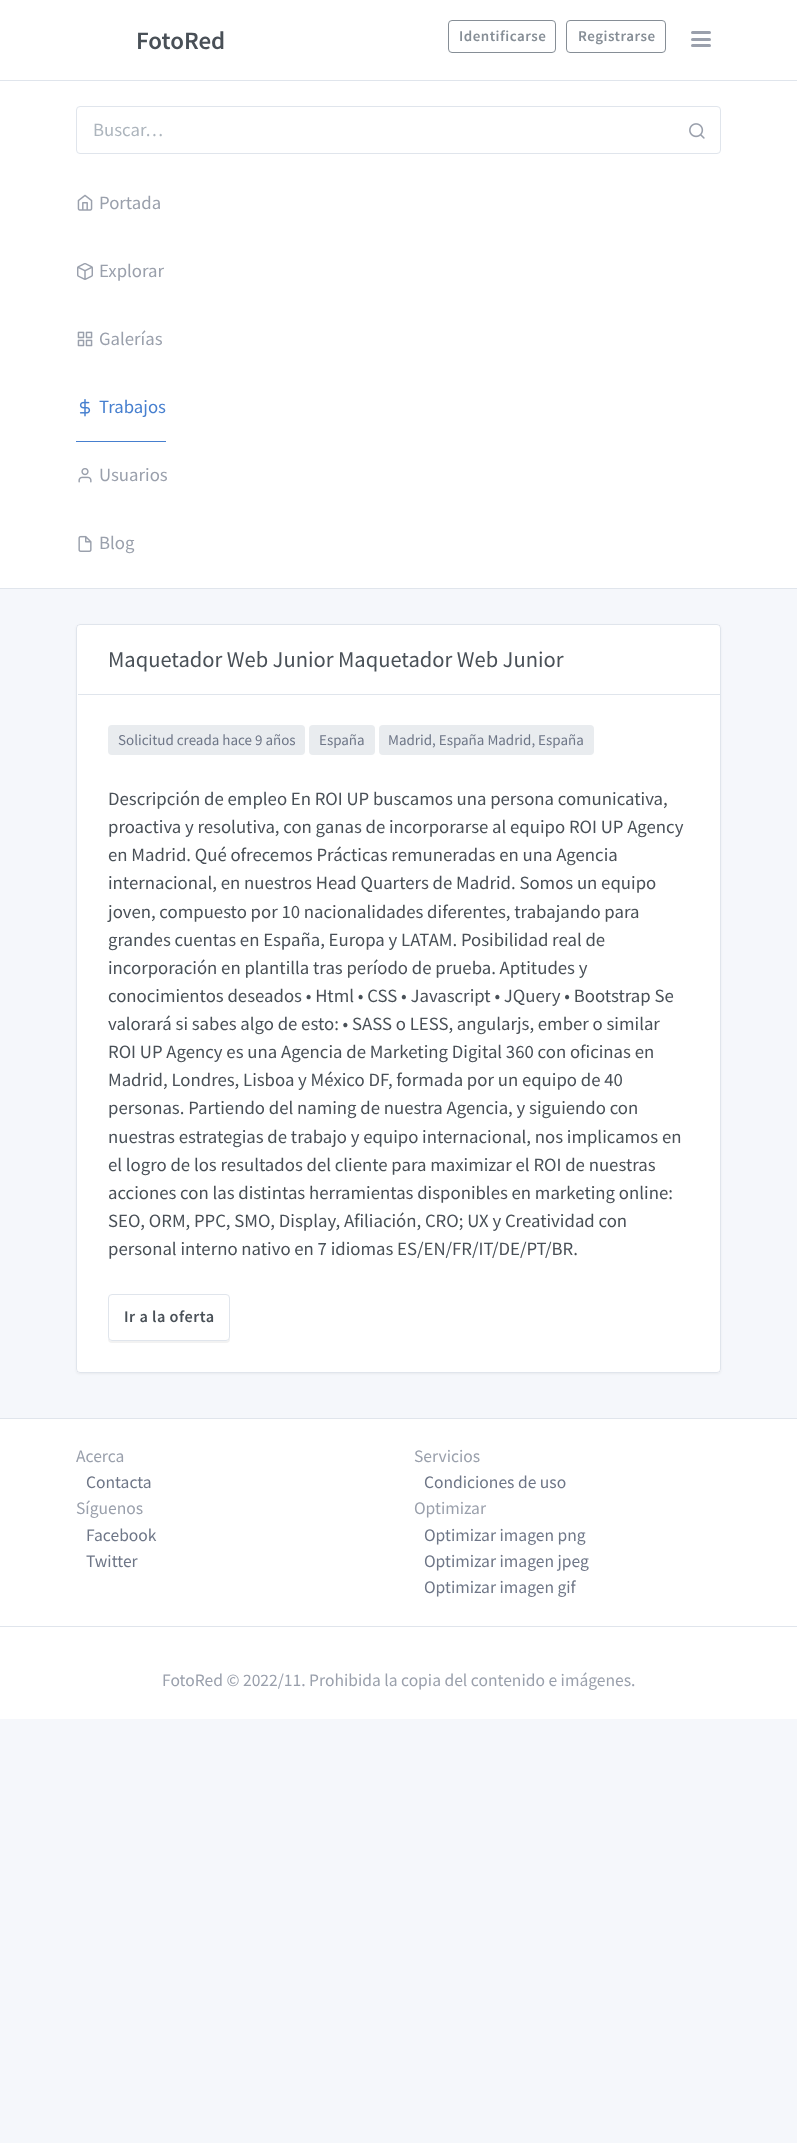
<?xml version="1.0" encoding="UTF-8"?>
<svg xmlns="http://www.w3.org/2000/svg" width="797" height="2143">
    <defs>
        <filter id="blur1" x="-50%" y="-200%" width="200%" height="500%"><feGaussianBlur stdDeviation="1"/></filter>
        <clipPath id="clip1"><path d="M 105 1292 H 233 V 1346 H 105 Z M 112 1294 H 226 C 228 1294 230 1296 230 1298 V 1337 C 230 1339 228 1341 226 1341 H 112 C 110 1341 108 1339 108 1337 V 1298 C 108 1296 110 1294 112 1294 Z" clip-rule="evenodd"/></clipPath>
        <filter id="blur2" x="-50%" y="-200%" width="200%" height="500%"><feGaussianBlur stdDeviation="0.5"/></filter>
    </defs>
    <rect width="100%" height="100%" fill="#F5F7FB"/>
    <rect x="0" y="0" width="797" height="80" fill="#FFFFFF"/>
    <rect x="0" y="80" width="797" height="1" fill="#E0E5EC"/>
    <text x="136" y="49" font-family="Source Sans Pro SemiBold" font-size="25" font-weight="600" fill="#495057">FotoRed</text>
    <rect x="448.5" y="20.5" width="107" height="32" rx="3.5" fill="none" stroke="#868E96"/>
    <text x="459" y="41" font-family="Source Sans Pro SemiBold" font-size="15" font-weight="600" letter-spacing="0.5" fill="#868E96">Identificarse</text>
    <rect x="566.5" y="20.5" width="99" height="32" rx="3.5" fill="none" stroke="#868E96"/>
    <text x="578" y="41" font-family="Source Sans Pro SemiBold" font-size="15" font-weight="600" letter-spacing="0.5" fill="#868E96">Registrarse</text>
    <rect x="691" y="31" width="20" height="3" rx="1.5" fill="#9AA0AC"/>
    <rect x="691" y="44" width="20" height="3" rx="1.5" fill="#9AA0AC"/>
    <rect x="691" y="38" width="20" height="3" rx="1.5" fill="#9AA0AC"/>
    <rect x="0" y="81" width="797" height="507" fill="#FFFFFF"/>
    <rect x="0" y="588" width="797" height="1" fill="#E0E5EC"/>
    <rect x="76.5" y="106.5" width="644" height="47" rx="3.5" fill="none" stroke="#E0E5EC"/>
    <text x="93" y="136" font-family="Source Sans Pro" font-size="18.75" fill="#ADB5BD">Buscar…</text>
    <image x="689" y="123" width="16" height="16" href="img_01.png"/>
    <image x="77" y="194" width="16" height="17" href="img_02.png"/>
    <text x="99" y="209" font-family="Source Sans Pro" font-size="18.75" fill="#9AA0AC">Portada</text>
    <image x="77" y="263" width="16" height="17" href="img_03.png"/>
    <text x="99" y="277" font-family="Source Sans Pro" font-size="18.75" fill="#9AA0AC">Explorar</text>
    <image x="77" y="331" width="16" height="16" href="img_04.png"/>
    <text x="99" y="345" font-family="Source Sans Pro" font-size="18.75" fill="#9AA0AC">Galerías</text>
    <rect x="76" y="441" width="90" height="1" fill="#467FCF"/>
    <image x="79" y="399" width="12" height="18" href="img_05.png"/>
    <text x="99" y="413" font-family="Source Sans Pro" font-size="18.75" fill="#467FCF">Trabajos</text>
    <image x="78" y="468" width="14" height="15" href="img_06.png"/>
    <text x="99" y="481" font-family="Source Sans Pro" font-size="18.75" fill="#9AA0AC">Usuarios</text>
    <image x="78" y="535" width="14" height="17" href="img_07.png"/>
    <text x="99" y="549" font-family="Source Sans Pro" font-size="18.75" fill="#9AA0AC">Blog</text>
    <rect x="76" y="625" width="645" height="749" rx="4" fill="#000000" fill-opacity="0.05" filter="url(#blur1)"/>
    <rect x="76" y="624" width="645" height="749" rx="4" fill="#FFFFFF"/>
    <rect x="76.5" y="624.5" width="644" height="748" rx="3.5" fill="none" stroke="#002864" stroke-opacity="0.12"/>
    <rect x="78" y="694" width="642" height="1" fill="#E0E5EC"/>
    <text x="108" y="667" font-family="Source Sans Pro" font-size="22.5" fill="#495057">Maquetador Web Junior Maquetador Web Junior</text>
    <rect x="108" y="725" width="197" height="30" rx="4" fill="#E9ECEF"/>
    <text x="118" y="745" font-family="Source Sans Pro" font-size="15" fill="#6E7687">Solicitud creada hace 9 años</text>
    <rect x="309" y="725" width="66" height="30" rx="4" fill="#E9ECEF"/>
    <text x="319" y="745" font-family="Source Sans Pro" font-size="15" fill="#6E7687">España</text>
    <rect x="379" y="725" width="215" height="30" rx="4" fill="#E9ECEF"/>
    <text x="388" y="745" font-family="Source Sans Pro" font-size="15" fill="#6E7687">Madrid, España Madrid, España</text>
    <text font-family="Source Sans Pro" font-size="18.75" fill="#495057">
        <tspan x="108" y="805">Descripción de empleo En ROI UP buscamos una persona comunicativa,</tspan>
        <tspan x="108" y="833">proactiva y resolutiva, con ganas de incorporarse al equipo ROI UP Agency</tspan>
        <tspan x="108" y="861">en Madrid. Qué ofrecemos Prácticas remuneradas en una Agencia</tspan>
        <tspan x="108" y="889">internacional, en nuestros Head Quarters de Madrid. Somos un equipo</tspan>
        <tspan x="108" y="918">joven, compuesto por 10 nacionalidades diferentes, trabajando para</tspan>
        <tspan x="108" y="946">grandes cuentas en España, Europa y LATAM. Posibilidad real de</tspan>
        <tspan x="108" y="974">incorporación en plantilla tras período de prueba. Aptitudes y</tspan>
        <tspan x="108" y="1002">conocimientos deseados • Html • CSS • Javascript • JQuery • Bootstrap Se</tspan>
        <tspan x="108" y="1030">valorará si sabes algo de esto: • SASS o LESS, angularjs, ember o similar</tspan>
        <tspan x="108" y="1058">ROI UP Agency es una Agencia de Marketing Digital 360 con oficinas en</tspan>
        <tspan x="108" y="1086">Madrid, Londres, Lisboa y México DF, formada por un equipo de 40</tspan>
        <tspan x="108" y="1114">personas. Partiendo del naming de nuestra Agencia, y siguiendo con</tspan>
        <tspan x="108" y="1143">nuestras estrategias de trabajo y equipo internacional, nos implicamos en</tspan>
        <tspan x="108" y="1171">el logro de los resultados del cliente para maximizar el ROI de nuestras</tspan>
        <tspan x="108" y="1199">acciones con las distintas herramientas disponibles en marketing online:</tspan>
        <tspan x="108" y="1227">SEO, ORM, PPC, SMO, Display, Afiliación, CRO; UX y Creatividad con</tspan>
        <tspan x="108" y="1255">personal interno nativo en 7 idiomas ES/EN/FR/IT/DE/PT/BR.</tspan>
    </text>
    <g clip-path="url(#clip1)">
        <rect x="108" y="1295" width="122" height="48" rx="4" fill="#000000" fill-opacity="0.05" filter="url(#blur2)"/>
    </g>
    <rect x="108.5" y="1294.5" width="121" height="46" rx="3.5" fill="none" stroke="#E0E5EC"/>
    <text x="124" y="1322" font-family="Source Sans Pro SemiBold" font-size="16.25" font-weight="600" letter-spacing="0.5" fill="#495057">Ir a la oferta</text>
    <rect x="0" y="1419" width="797" height="207" fill="#FFFFFF"/>
    <rect x="0" y="1418" width="797" height="1" fill="#E0E5EC"/>
    <text x="76" y="1462" font-family="Source Sans Pro" font-size="17.5" fill="#9AA0AC">Acerca</text>
    <text x="86" y="1488" font-family="Source Sans Pro" font-size="17.5" fill="#6E7687">Contacta</text>
    <text x="414" y="1462" font-family="Source Sans Pro" font-size="17.5" fill="#9AA0AC">Servicios</text>
    <text x="424" y="1488" font-family="Source Sans Pro" font-size="17.5" fill="#6E7687">Condiciones de uso</text>
    <text x="76" y="1514" font-family="Source Sans Pro" font-size="17.5" fill="#9AA0AC">Síguenos</text>
    <text font-family="Source Sans Pro" font-size="17.5" fill="#6E7687">
        <tspan x="86" y="1541">Facebook</tspan>
        <tspan x="86" y="1567">Twitter</tspan>
    </text>
    <text x="414" y="1514" font-family="Source Sans Pro" font-size="17.5" fill="#9AA0AC">Optimizar</text>
    <text font-family="Source Sans Pro" font-size="17.5" fill="#6E7687">
        <tspan x="424" y="1541">Optimizar imagen png</tspan>
        <tspan x="424" y="1567">Optimizar imagen jpeg</tspan>
        <tspan x="424" y="1593">Optimizar imagen gif</tspan>
    </text>
    <rect x="0" y="1627" width="797" height="92" fill="#FFFFFF"/>
    <rect x="0" y="1626" width="797" height="1" fill="#E0E5EC"/>
    <text x="162" y="1686" font-family="Source Sans Pro" font-size="17.5" fill="#9AA0AC">FotoRed © 2022/11. Prohibida la copia del contenido e imágenes.</text>
</svg>
